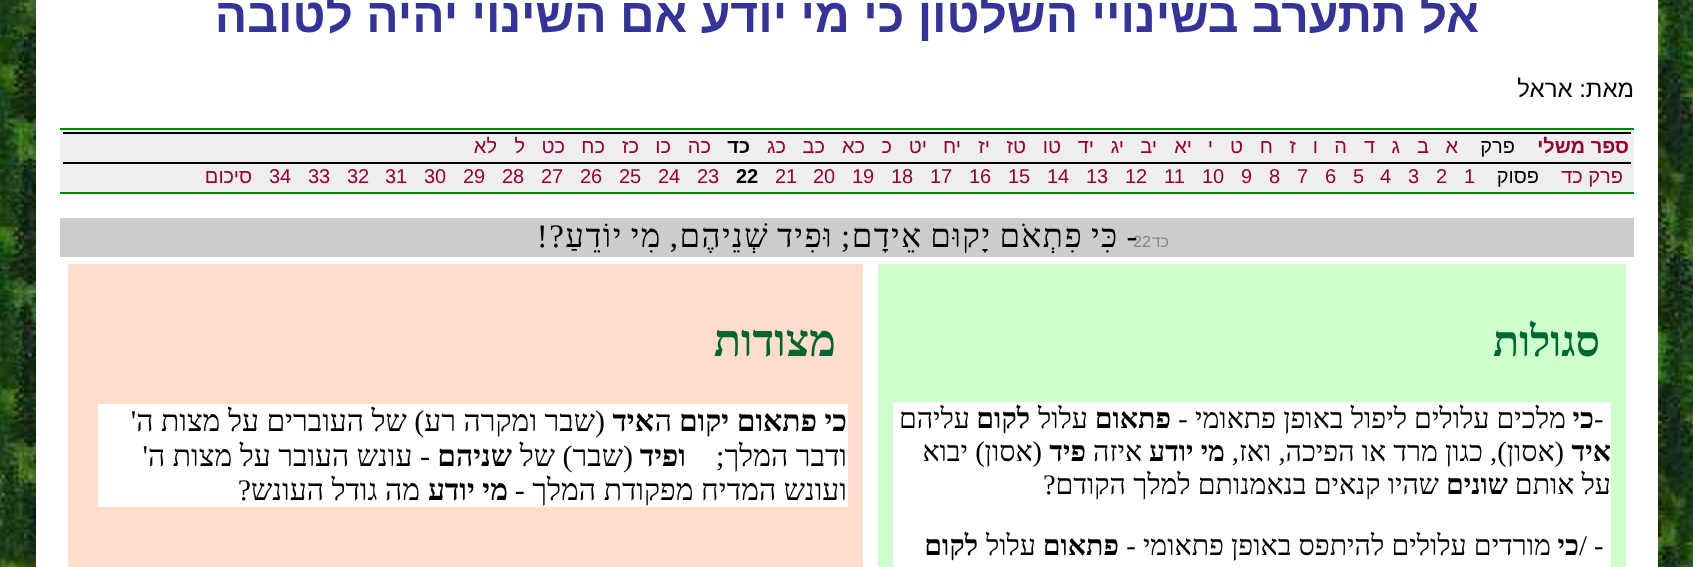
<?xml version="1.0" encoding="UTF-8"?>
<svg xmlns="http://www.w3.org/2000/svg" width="1693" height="567">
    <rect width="100%" height="100%" fill="#FFFFFF"/>
    <image x="0" y="0" width="1693" height="567" href="img_01.png"/>
    <rect x="36" y="0" width="1622" height="567" fill="#FFFFFF"/>
    <text x="1479" y="32" font-family="Liberation Sans" font-size="48" font-weight="700" direction="rtl" fill="#333399">אל תתערב בשינויי השלטון כי מי יודע אם השינוי יהיה לטובה</text>
    <text x="1634" y="97" font-family="Liberation Sans" font-size="24" direction="rtl" fill="#000000">מאת: אראל</text>
    <rect x="60" y="130" width="1574" height="62" fill="#EEEEEE"/>
    <rect x="60" y="128" width="1574" height="2" fill="#008800"/>
    <rect x="60" y="192" width="1574" height="2" fill="#008800"/>
    <rect x="63" y="132" width="1568" height="2" fill="#000000"/>
    <text x="1629" y="153" font-family="Liberation Sans" font-size="20" font-weight="700" direction="rtl" fill="#990033">ספר משלי</text>
    <text x="1515" y="153" font-family="Liberation Sans" font-size="20" direction="rtl" fill="#000000">פרק</text>
    <text x="1458" y="153" font-family="Liberation Sans" font-size="20" direction="rtl" fill="#990033">א</text>
    <text x="1429" y="153" font-family="Liberation Sans" font-size="20" direction="rtl" fill="#990033">ב</text>
    <text x="1400" y="153" font-family="Liberation Sans" font-size="20" direction="rtl" fill="#990033">ג</text>
    <text x="1375" y="153" font-family="Liberation Sans" font-size="20" direction="rtl" fill="#990033">ד</text>
    <text x="1347" y="153" font-family="Liberation Sans" font-size="20" direction="rtl" fill="#990033">ה</text>
    <text x="1318" y="153" font-family="Liberation Sans" font-size="20" direction="rtl" fill="#990033">ו</text>
    <text x="1296" y="153" font-family="Liberation Sans" font-size="20" direction="rtl" fill="#990033">ז</text>
    <text x="1273" y="153" font-family="Liberation Sans" font-size="20" direction="rtl" fill="#990033">ח</text>
    <text x="1243" y="153" font-family="Liberation Sans" font-size="20" direction="rtl" fill="#990033">ט</text>
    <text x="1213" y="153" font-family="Liberation Sans" font-size="20" direction="rtl" fill="#990033">י</text>
    <text x="1192" y="153" font-family="Liberation Sans" font-size="20" direction="rtl" fill="#990033">יא</text>
    <text x="1157" y="153" font-family="Liberation Sans" font-size="20" direction="rtl" fill="#990033">יב</text>
    <text x="1124" y="153" font-family="Liberation Sans" font-size="20" direction="rtl" fill="#990033">יג</text>
    <text x="1094" y="153" font-family="Liberation Sans" font-size="20" direction="rtl" fill="#990033">יד</text>
    <text x="1061" y="153" font-family="Liberation Sans" font-size="20" direction="rtl" fill="#990033">טו</text>
    <text x="1026" y="153" font-family="Liberation Sans" font-size="20" direction="rtl" fill="#990033">טז</text>
    <text x="990" y="153" font-family="Liberation Sans" font-size="20" direction="rtl" fill="#990033">יז</text>
    <text x="961" y="153" font-family="Liberation Sans" font-size="20" direction="rtl" fill="#990033">יח</text>
    <text x="927" y="153" font-family="Liberation Sans" font-size="20" direction="rtl" fill="#990033">יט</text>
    <text x="892" y="153" font-family="Liberation Sans" font-size="20" direction="rtl" fill="#990033">כ</text>
    <text x="865" y="153" font-family="Liberation Sans" font-size="20" direction="rtl" fill="#990033">כא</text>
    <text x="825" y="153" font-family="Liberation Sans" font-size="20" direction="rtl" fill="#990033">כב</text>
    <text x="786" y="153" font-family="Liberation Sans" font-size="20" direction="rtl" fill="#990033">כג</text>
    <text x="750" y="153" font-family="Liberation Sans" font-size="20" font-weight="700" direction="rtl" fill="#000000">כד</text>
    <text x="711" y="153" font-family="Liberation Sans" font-size="20" direction="rtl" fill="#990033">כה</text>
    <text x="671" y="153" font-family="Liberation Sans" font-size="20" direction="rtl" fill="#990033">כו</text>
    <text x="639" y="153" font-family="Liberation Sans" font-size="20" direction="rtl" fill="#990033">כז</text>
    <text x="605" y="153" font-family="Liberation Sans" font-size="20" direction="rtl" fill="#990033">כח</text>
    <text x="565" y="153" font-family="Liberation Sans" font-size="20" direction="rtl" fill="#990033">כט</text>
    <text x="525" y="153" font-family="Liberation Sans" font-size="20" direction="rtl" fill="#990033">ל</text>
    <text x="497" y="153" font-family="Liberation Sans" font-size="20" direction="rtl" fill="#990033">לא</text>
    <rect x="63" y="162" width="1568" height="2" fill="#000000"/>
    <text x="1623" y="183" font-family="Liberation Sans" font-size="20" direction="rtl" fill="#990033">פרק כד</text>
    <text x="1539" y="183" font-family="Liberation Sans" font-size="20" direction="rtl" fill="#000000">פסוק</text>
    <text x="1464" y="183" font-family="Liberation Sans" font-size="20" fill="#990033">1</text>
    <text x="1436" y="183" font-family="Liberation Sans" font-size="20" fill="#990033">2</text>
    <text x="1408" y="183" font-family="Liberation Sans" font-size="20" fill="#990033">3</text>
    <text x="1380" y="183" font-family="Liberation Sans" font-size="20" fill="#990033">4</text>
    <text x="1353" y="183" font-family="Liberation Sans" font-size="20" fill="#990033">5</text>
    <text x="1325" y="183" font-family="Liberation Sans" font-size="20" fill="#990033">6</text>
    <text x="1297" y="183" font-family="Liberation Sans" font-size="20" fill="#990033">7</text>
    <text x="1269" y="183" font-family="Liberation Sans" font-size="20" fill="#990033">8</text>
    <text x="1241" y="183" font-family="Liberation Sans" font-size="20" fill="#990033">9</text>
    <text x="1202" y="183" font-family="Liberation Sans" font-size="20" fill="#990033">10</text>
    <text x="1164" y="183" font-family="Liberation Sans" font-size="20" fill="#990033">11</text>
    <text x="1125" y="183" font-family="Liberation Sans" font-size="20" fill="#990033">12</text>
    <text x="1086" y="183" font-family="Liberation Sans" font-size="20" fill="#990033">13</text>
    <text x="1047" y="183" font-family="Liberation Sans" font-size="20" fill="#990033">14</text>
    <text x="1008" y="183" font-family="Liberation Sans" font-size="20" fill="#990033">15</text>
    <text x="969" y="183" font-family="Liberation Sans" font-size="20" fill="#990033">16</text>
    <text x="930" y="183" font-family="Liberation Sans" font-size="20" fill="#990033">17</text>
    <text x="891" y="183" font-family="Liberation Sans" font-size="20" fill="#990033">18</text>
    <text x="852" y="183" font-family="Liberation Sans" font-size="20" fill="#990033">19</text>
    <text x="813" y="183" font-family="Liberation Sans" font-size="20" fill="#990033">20</text>
    <text x="775" y="183" font-family="Liberation Sans" font-size="20" fill="#990033">21</text>
    <text x="736" y="183" font-family="Liberation Sans" font-size="20" font-weight="700" fill="#000000">22</text>
    <text x="697" y="183" font-family="Liberation Sans" font-size="20" fill="#990033">23</text>
    <text x="658" y="183" font-family="Liberation Sans" font-size="20" fill="#990033">24</text>
    <text x="619" y="183" font-family="Liberation Sans" font-size="20" fill="#990033">25</text>
    <text x="580" y="183" font-family="Liberation Sans" font-size="20" fill="#990033">26</text>
    <text x="541" y="183" font-family="Liberation Sans" font-size="20" fill="#990033">27</text>
    <text x="502" y="183" font-family="Liberation Sans" font-size="20" fill="#990033">28</text>
    <text x="463" y="183" font-family="Liberation Sans" font-size="20" fill="#990033">29</text>
    <text x="424" y="183" font-family="Liberation Sans" font-size="20" fill="#990033">30</text>
    <text x="385" y="183" font-family="Liberation Sans" font-size="20" fill="#990033">31</text>
    <text x="347" y="183" font-family="Liberation Sans" font-size="20" fill="#990033">32</text>
    <text x="308" y="183" font-family="Liberation Sans" font-size="20" fill="#990033">33</text>
    <text x="269" y="183" font-family="Liberation Sans" font-size="20" fill="#990033">34</text>
    <text x="252" y="183" font-family="Liberation Sans" font-size="20" direction="rtl" fill="#990033">סיכום</text>
    <rect x="60" y="218" width="1574" height="39" fill="#CCCCCC"/>
    <text x="1133" y="247" font-family="Liberation Sans" font-size="16" fill="#888888">22</text>
    <text x="1139" y="247" word-spacing="-2" font-family="Liberation Serif" font-size="33" letter-spacing="1.5" direction="rtl" fill="#000000">- כִּי פִתְאֹם יָקוּם אֵידָם; וּפִיד שְׁנֵיהֶם, מִי יוֹדֵעַ?!</text>
    <text x="1169" y="247" font-family="Liberation Sans" font-size="16" direction="rtl" fill="#888888">כד</text>
    <rect x="878" y="264" width="748" height="303" fill="#CCFFCC"/>
    <text x="1600" y="356" font-family="Liberation Serif" font-size="43" font-weight="700" direction="rtl" fill="#006633">סגולות</text>
    <rect x="893" y="402" width="718" height="165" fill="#FFFFFF"/>
    <text x="1594" y="428" font-family="Liberation Serif" font-size="28.5" fill="#000000">-</text>
    <text x="1594" y="428" font-family="Liberation Serif" font-size="28.5" font-weight="700" direction="rtl" fill="#000000">כי</text>
    <text x="1566" y="428" font-family="Liberation Serif" font-size="28.5" direction="rtl" fill="#000000">מלכים עלולים ליפול באופן פתאומי -</text>
    <text x="1171" y="428" font-family="Liberation Serif" font-size="28.5" font-weight="700" direction="rtl" fill="#000000">פתאום</text>
    <text x="1088" y="428" font-family="Liberation Serif" font-size="28.5" direction="rtl" fill="#000000">עלול</text>
    <text x="1030" y="428" font-family="Liberation Serif" font-size="28.5" font-weight="700" direction="rtl" fill="#000000">לקום</text>
    <text x="970" y="428" font-family="Liberation Serif" font-size="28.5" direction="rtl" fill="#000000">עליהם</text>
    <text x="1611" y="461" font-family="Liberation Serif" font-size="28.5" font-weight="700" direction="rtl" fill="#000000">איד</text>
    <text x="1564" y="461" font-family="Liberation Serif" font-size="28.5" direction="rtl" fill="#000000">(אסון), כגון מרד או הפיכה, ואז,</text>
    <text x="1225" y="461" font-family="Liberation Serif" font-size="28.5" font-weight="700" direction="rtl" fill="#000000">מי יודע</text>
    <text x="1142" y="461" font-family="Liberation Serif" font-size="28.5" direction="rtl" fill="#000000">איזה</text>
    <text x="1086" y="461" font-family="Liberation Serif" font-size="28.5" font-weight="700" direction="rtl" fill="#000000">פיד</text>
    <text x="1042" y="461" font-family="Liberation Serif" font-size="28.5" direction="rtl" fill="#000000">(אסון) יבוא</text>
    <text x="1611" y="494" font-family="Liberation Serif" font-size="28.5" direction="rtl" fill="#000000">על אותם</text>
    <text x="1508" y="494" font-family="Liberation Serif" font-size="28.5" font-weight="700" direction="rtl" fill="#000000">שונים</text>
    <text x="1439" y="494" font-family="Liberation Serif" font-size="28.5" direction="rtl" fill="#000000">שהיו קנאים בנאמנותם למלך הקודם?</text>
    <text x="1579" y="555" font-family="Liberation Serif" font-size="28.5" fill="#000000">/ -</text>
    <text x="1579" y="555" font-family="Liberation Serif" font-size="28.5" font-weight="700" direction="rtl" fill="#000000">כי</text>
    <text x="1551" y="555" font-family="Liberation Serif" font-size="28.5" direction="rtl" fill="#000000">מורדים עלולים להיתפס באופן פתאומי -</text>
    <text x="1119" y="555" font-family="Liberation Serif" font-size="28.5" font-weight="700" direction="rtl" fill="#000000">פתאום</text>
    <text x="1036" y="555" font-family="Liberation Serif" font-size="28.5" direction="rtl" fill="#000000">עלול</text>
    <text x="978" y="555" font-family="Liberation Serif" font-size="28.5" font-weight="700" direction="rtl" fill="#000000">לקום</text>
    <rect x="68" y="264" width="795" height="303" fill="#FFDDCC"/>
    <text x="836" y="356" font-family="Liberation Serif" font-size="45" font-weight="700" direction="rtl" fill="#006633">מצודות</text>
    <rect x="98" y="404" width="750" height="103" fill="#FFFFFF"/>
    <text x="847" y="431" font-family="Liberation Serif" font-size="30" font-weight="700" direction="rtl" fill="#000000">כי פתאום יקום</text>
    <text x="672" y="431" font-family="Liberation Serif" font-size="30" direction="rtl" fill="#000000">ה</text>
    <text x="654" y="431" font-family="Liberation Serif" font-size="30" font-weight="700" direction="rtl" fill="#000000">איד</text>
    <text x="605" y="431" font-family="Liberation Serif" font-size="30" direction="rtl" fill="#000000">(שבר ומקרה רע) של העוברים על מצות ה'</text>
    <text x="847" y="466" font-family="Liberation Serif" font-size="30" direction="rtl" fill="#000000">ודבר המלך;</text>
    <text x="686" y="466" font-family="Liberation Serif" font-size="30" font-weight="700" direction="rtl" fill="#000000">ופיד</text>
    <text x="633" y="466" font-family="Liberation Serif" font-size="30" direction="rtl" fill="#000000">(שבר) של</text>
    <text x="512" y="466" font-family="Liberation Serif" font-size="30" font-weight="700" direction="rtl" fill="#000000">שניהם</text>
    <text x="430" y="466" font-family="Liberation Serif" font-size="30" direction="rtl" fill="#000000">- עונש העובר על מצות ה'</text>
    <text x="847" y="500" font-family="Liberation Serif" font-size="30" direction="rtl" fill="#000000">ועונש המדיח מפקודת המלך -</text>
    <text x="508" y="500" font-family="Liberation Serif" font-size="30" font-weight="700" direction="rtl" fill="#000000">מי יודע</text>
    <text x="420" y="500" font-family="Liberation Serif" font-size="30" direction="rtl" fill="#000000">מה גודל העונש?</text>
</svg>
